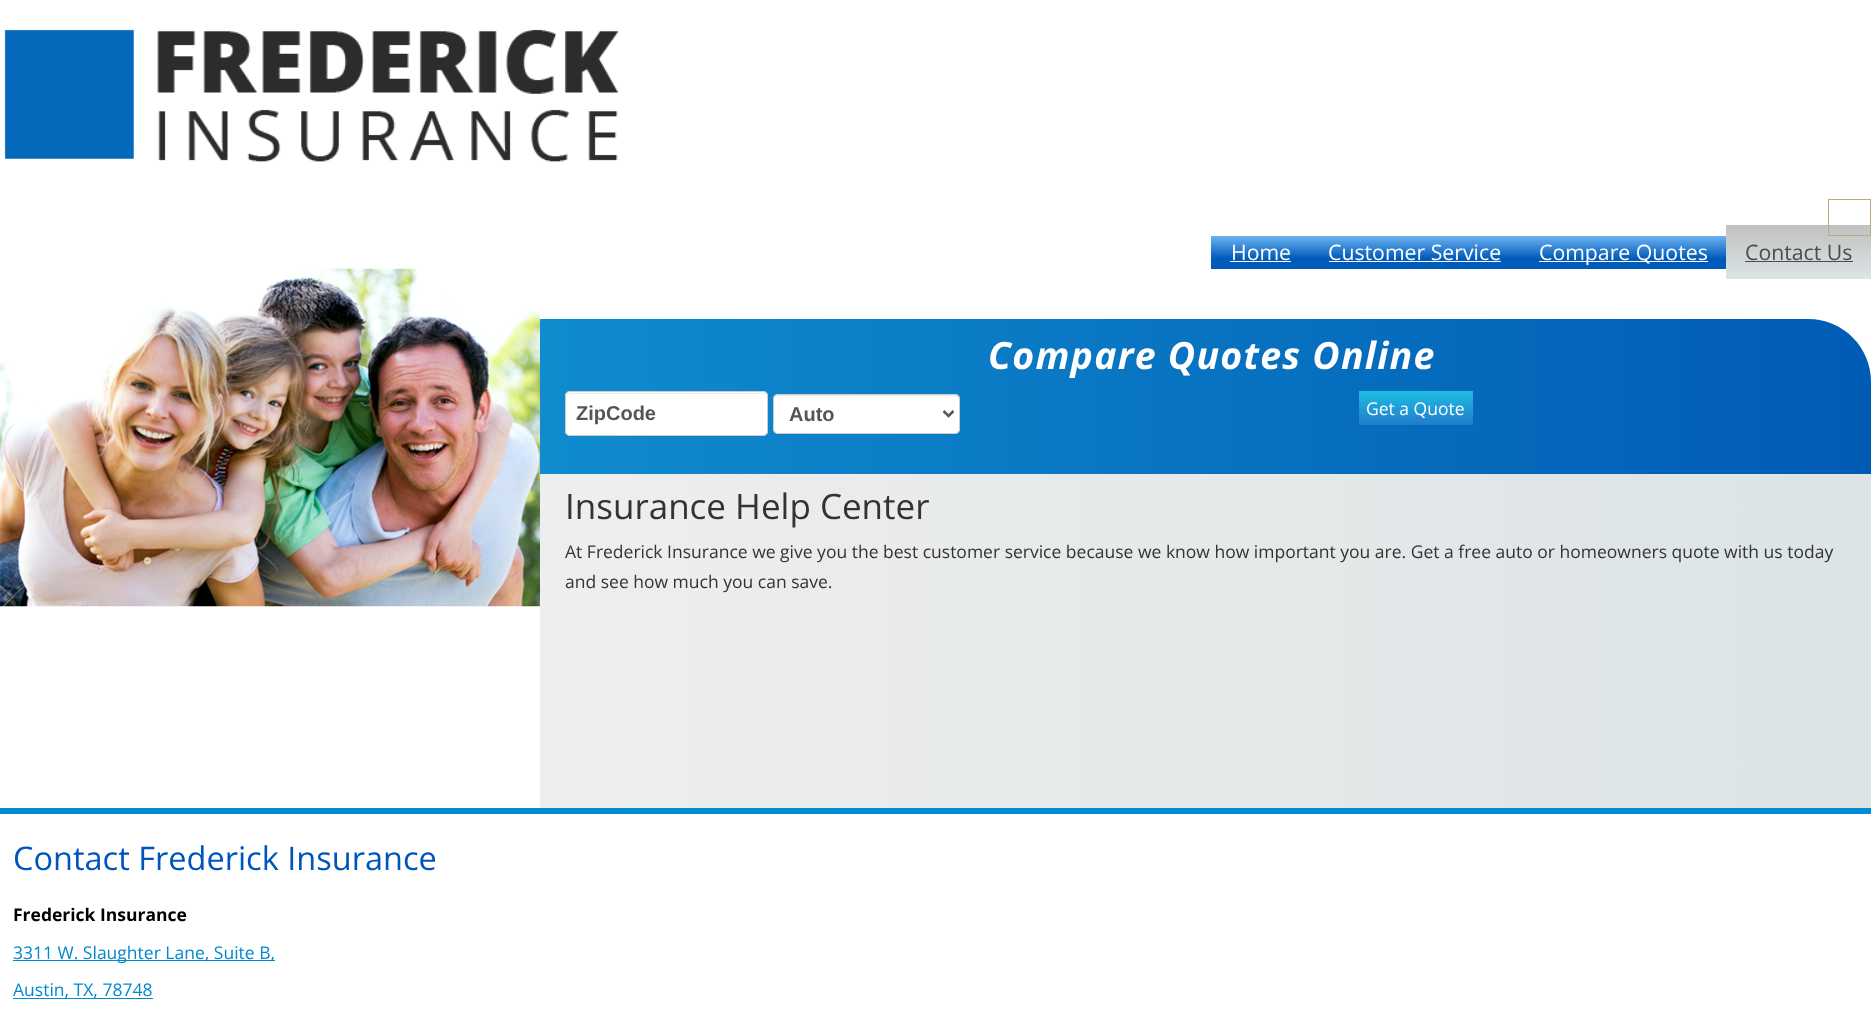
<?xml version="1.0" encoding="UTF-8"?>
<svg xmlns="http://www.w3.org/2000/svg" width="1871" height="1036">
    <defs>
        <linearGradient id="g1" gradientUnits="userSpaceOnUse" x1="1799" y1="225" x2="1799" y2="279"><stop offset="0" stop-color="#C1C1C1"/><stop offset="1" stop-color="#DCE4E6"/><stop offset="1" stop-color="#015BBB"/><stop offset="1" stop-color="#E2E2E2"/></linearGradient>
        <linearGradient id="g2" gradientUnits="userSpaceOnUse" x1="1541" y1="236" x2="1541" y2="269"><stop offset="0" stop-color="#6DB3F2"/><stop offset="0.68" stop-color="#015BBB"/><stop offset="1" stop-color="#015BBB"/><stop offset="1" stop-color="#1094D4"/></linearGradient>
        <linearGradient id="g3" gradientUnits="userSpaceOnUse" x1="540" y1="396" x2="1871" y2="396"><stop offset="0" stop-color="#108BCE"/><stop offset="1" stop-color="#005BB4"/></linearGradient>
        <linearGradient id="g4" gradientUnits="userSpaceOnUse" x1="1416" y1="391" x2="1416" y2="425"><stop offset="0" stop-color="#1E5799"/><stop offset="0" stop-color="#1FBCE4"/><stop offset="1" stop-color="#207CCA"/><stop offset="1" stop-color="#1084CD"/></linearGradient>
        <linearGradient id="g5" gradientUnits="userSpaceOnUse" x1="540" y1="641" x2="1871" y2="641"><stop offset="0.01" stop-color="#EEEEEE"/><stop offset="1" stop-color="#DCE4E6"/><stop offset="1" stop-color="#EEEEEE"/><stop offset="1" stop-color="#DCE4E6"/></linearGradient>
    </defs>
    <rect width="100%" height="100%" fill="#FFFFFF"/>
    <image x="4" y="29" width="615" height="133" href="img_01.png"/>
    <rect x="1726" y="225" width="145" height="54" fill="url(#g1)"/>
    <rect x="1828.5" y="199.5" width="42" height="36" fill="none" stroke="#C1AA77"/>
    <rect x="1211" y="236" width="515" height="33" fill="url(#g2)"/>
    <text x="1231" y="260" font-family="Open Sans" font-size="21.25" fill="#FFFFFF">Home</text>
    <rect x="1230" y="261" width="61" height="1" fill="#FFFFFF"/>
    <text x="1328" y="260" font-family="Open Sans" font-size="21.25" fill="#FFFFFF">Customer Service</text>
    <rect x="1329" y="261" width="172" height="1" fill="#FFFFFF"/>
    <rect x="1539" y="261" width="169" height="1" fill="#FFFFFF"/>
    <text x="1539" y="260" font-family="Open Sans" font-size="21.25" fill="#FFFFFF">Compare Quotes</text>
    <text x="1745" y="260" font-family="Open Sans" font-size="21.25" fill="#4C4C4C">Contact Us</text>
    <rect x="1745" y="261" width="108" height="1" fill="#4C4C4C"/>
    <rect x="0" y="808" width="1871" height="6" fill="#008DD4"/>
    <image x="0" y="268" width="540" height="339" href="img_02.png"/>
    <path d="M 540 319 H 1808 C 1843 319 1871 347 1871 382 V 474 H 540 Z" fill="url(#g3)"/>
    <text x="988" y="369" font-family="Open Sans" font-size="37.5" font-weight="700" font-style="italic" letter-spacing="1.25" fill="#FFFFFF">Compare Quotes Online</text>
    <rect x="565" y="391" width="203" height="45" rx="5" fill="#FFFFFF"/>
    <path d="M 570 394 H 762 C 765 394 766 395 766 398 V 397 C 766 395 764 393 762 393 H 570 C 568 393 566 395 566 397 V 398 C 566 395 568 394 570 394 Z" fill="#ECECEC"/>
    <rect x="565.5" y="391.5" width="202" height="44" rx="4.5" fill="none" stroke="#CCCCCC"/>
    <text x="576" y="420" font-family="Liberation Sans" font-size="20" font-weight="700" fill="#555555">ZipCode</text>
    <rect x="773" y="394" width="187" height="40" rx="5" fill="#FFFFFF"/>
    <path d="M 778 396 H 955 C 957 396 959 398 959 400 C 959 397 958 395 955 395 H 777 C 775 396 774 398 774 400 C 774 398 775 396 778 396 Z" fill="#ECECEC"/>
    <rect x="773.5" y="394.5" width="186" height="39" rx="4.5" fill="none" stroke="#CCCCCC"/>
    <path d="M 943.5 411 L 948.5 416 L 953.5 411" fill="none" stroke="#555555" stroke-width="2.5"/>
    <text x="789" y="421" font-family="Liberation Sans" font-size="20" font-weight="700" fill="#555555">Auto</text>
    <rect x="1359" y="391" width="114" height="34" fill="url(#g4)"/>
    <text x="1366" y="415" font-family="Open Sans" font-size="17.5" fill="#FFFFFF">Get a Quote</text>
    <rect x="540" y="474" width="1331" height="334" fill="url(#g5)"/>
    <text x="565" y="519" font-family="Open Sans" font-size="35" fill="#333333">Insurance Help Center</text>
    <text font-family="Open Sans" font-size="17.5" fill="#333333">
        <tspan x="565" y="558">At Frederick Insurance we give you the best customer service because we know how important you are. Get a free auto or homeowners quote with us today</tspan>
        <tspan x="565" y="588">and see how much you can save.</tspan>
    </text>
    <text x="13" y="870" font-family="Open Sans" font-size="32.5" fill="#0055BC">Contact Frederick Insurance</text>
    <text x="13" y="921" font-family="Open Sans" font-size="17.5" font-weight="700" fill="#000000">Frederick Insurance</text>
    <rect x="13" y="960" width="262" height="1" fill="#0088CC"/>
    <text x="13" y="959" font-family="Open Sans" font-size="17.5" fill="#0088CC">3311 W. Slaughter Lane, Suite B,</text>
    <rect x="13" y="998" width="140" height="1" fill="#0088CC"/>
    <text x="13" y="996" font-family="Open Sans" font-size="17.5" fill="#0088CC">Austin, TX, 78748</text>
</svg>
